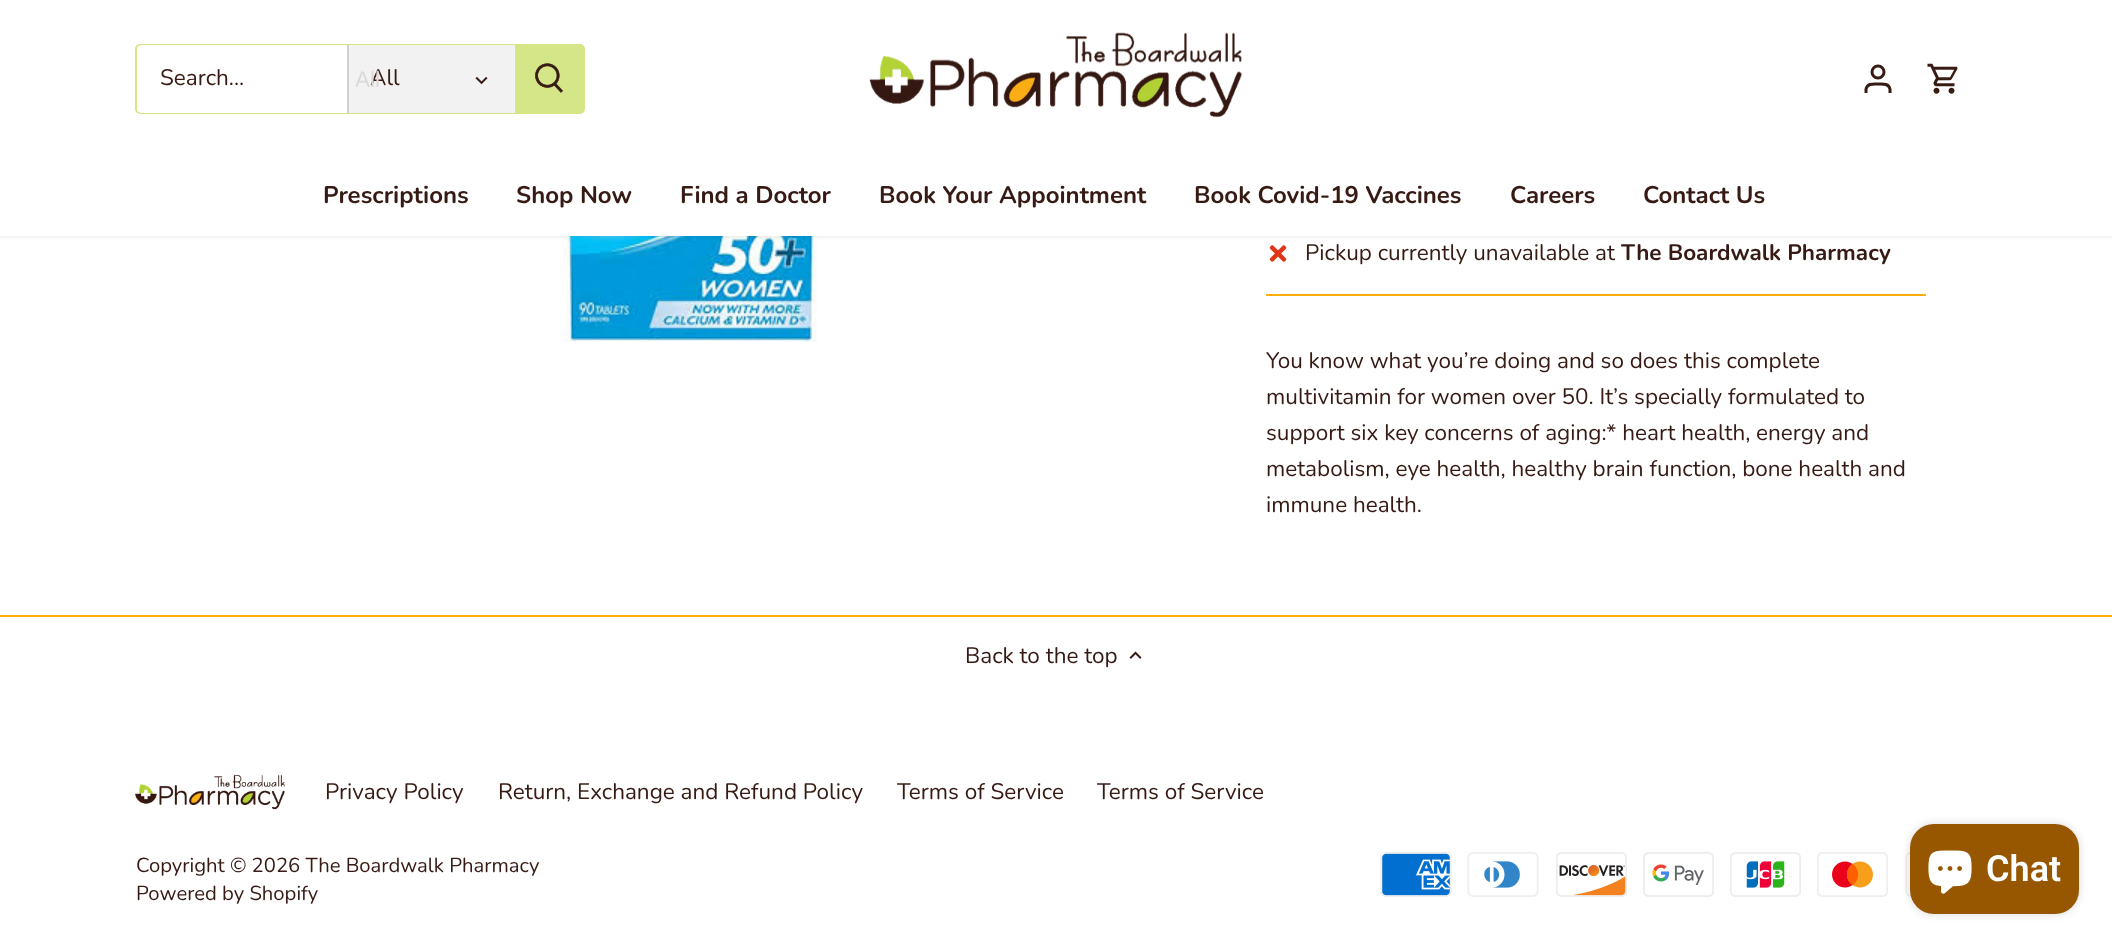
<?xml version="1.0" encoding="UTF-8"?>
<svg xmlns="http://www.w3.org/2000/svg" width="2112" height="944">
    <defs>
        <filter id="blur1" x="-50%" y="-200%" width="200%" height="500%"><feGaussianBlur stdDeviation="2"/></filter>
        <clipPath id="clip1"><rect x="356" y="65" width="135" height="28"/></clipPath>
        <filter id="blur2" x="-50%" y="-200%" width="200%" height="500%"><feGaussianBlur stdDeviation="4"/></filter>
    </defs>
    <rect width="100%" height="100%" fill="#FFFFFF"/>
    <image x="563" y="236" width="255" height="106" href="img_05.png"/>
    <rect x="-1" y="-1" width="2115" height="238" fill="#000000" fill-opacity="0.08" filter="url(#blur1)"/>
    <rect x="0" y="0" width="2112" height="236" fill="#FFFFFF"/>
    <rect x="136" y="45" width="448" height="68" rx="4" fill="none" stroke="#D4E688" stroke-width="2"/>
    <path d="M 142 45 H 347 V 113 H 142 C 139 113 137 111 137 108 V 50 C 137 47 139 45 142 45 Z" fill="#FFFFFF"/>
    <text x="160" y="85" font-family="Nunito" font-size="22.5" fill="#361A13">Search...</text>
    <rect x="349" y="45" width="166" height="68" fill="#F2F2F2"/>
    <rect x="347" y="45" width="2" height="68" fill="#D5CFCD"/>
    <text x="370" y="85" font-family="Nunito" font-size="22.5" fill="#361A13">All</text>
    <g clip-path="url(#clip1)">
        <text x="355" y="87" font-family="Liberation Sans" font-size="22.5" fill="#DCD8D8">All</text>
    </g>
    <image x="475" y="76" width="13" height="9" href="img_01.png"/>
    <path d="M 515 45 H 581 C 582.5 45 584 46.5 584 48 V 110 C 584 111.5 582.5 113 581 113 H 515 Z" fill="#D4E688"/>
    <image x="535" y="63" width="28" height="30" href="img_02.png"/>
    <image x="869" y="32" width="373" height="86" href="img_03.png"/>
    <circle cx="1878" cy="72" r="6" fill="none" stroke="#361C13" stroke-width="3"/>
    <path d="M 1890 93 V 89 C 1888.5 83 1882.5 84 1878 84 C 1873.5 84 1867.5 83 1866 89 V 93" fill="none" stroke="#361C13" stroke-width="3"/>
    <image x="1927" y="63" width="31" height="31" href="img_04.png"/>
    <text x="323" y="203" font-family="Nunito" font-size="24" font-weight="700" fill="#361A13">Prescriptions</text>
    <text x="516" y="203" font-family="Nunito" font-size="24" font-weight="700" fill="#361A13">Shop Now</text>
    <text x="680" y="203" font-family="Nunito" font-size="24" font-weight="700" fill="#361A13">Find a Doctor</text>
    <text x="879" y="203" font-family="Nunito" font-size="24" font-weight="700" fill="#361A13">Book Your Appointment</text>
    <text x="1194" y="203" font-family="Nunito" font-size="24" font-weight="700" fill="#361A13">Book Covid-19 Vaccines</text>
    <text x="1510" y="203" font-family="Nunito" font-size="24" font-weight="700" fill="#361A13">Careers</text>
    <text x="1643" y="203" font-family="Nunito" font-size="24" font-weight="700" fill="#361A13">Contact Us</text>
    <image x="1269" y="245" width="18" height="17" href="img_06.png"/>
    <text x="1305" y="260" font-family="Nunito" font-size="22.5" fill="#361A13">Pickup currently unavailable at</text>
    <text x="1621" y="260" font-family="Nunito" font-size="22.5" font-weight="700" fill="#361A13">The Boardwalk Pharmacy</text>
    <rect x="1266" y="294" width="660" height="2" fill="#FDAE0D"/>
    <text font-family="Nunito" font-size="22.5" fill="#361A13">
        <tspan x="1266" y="368">You know what you’re doing and so does this complete</tspan>
        <tspan x="1266" y="404">multivitamin for women over 50. It’s specially formulated to</tspan>
        <tspan x="1266" y="440">support six key concerns of aging:* heart health, energy and</tspan>
        <tspan x="1266" y="476">metabolism, eye health, healthy brain function, bone health and</tspan>
        <tspan x="1266" y="512">immune health.</tspan>
    </text>
    <rect x="0" y="615" width="2112" height="2" fill="#FDAE0D"/>
    <text x="965" y="663" font-family="Nunito" font-size="22.5" fill="#361A13">Back to the top</text>
    <image x="1129" y="651" width="13" height="8" href="img_07.png"/>
    <image x="135" y="775" width="150" height="35" href="img_08.png"/>
    <text x="325" y="799" font-family="Nunito" font-size="22.5" fill="#361A13">Privacy Policy</text>
    <text x="498" y="799" font-family="Nunito" font-size="22.5" fill="#361A13">Return, Exchange and Refund Policy</text>
    <text x="897" y="799" font-family="Nunito" font-size="22.5" fill="#361A13">Terms of Service</text>
    <text x="1097" y="799" font-family="Nunito" font-size="22.5" fill="#361A13">Terms of Service</text>
    <text font-family="Nunito" font-size="20.25" fill="#361A13">
        <tspan x="136" y="872">Copyright © 2026 The Boardwalk Pharmacy</tspan>
        <tspan x="136" y="900">Powered by Shopify</tspan>
    </text>
    <image x="1380" y="852" width="72" height="45" href="img_09.png"/>
    <image x="1467" y="852" width="72" height="45" href="img_10.png"/>
    <image x="1556" y="852" width="71" height="45" href="img_11.png"/>
    <image x="1643" y="852" width="71" height="45" href="img_12.png"/>
    <image x="1730" y="852" width="71" height="45" href="img_13.png"/>
    <image x="1817" y="852" width="71" height="45" href="img_14.png"/>
    <image x="1905" y="852" width="6" height="45" href="img_15.png"/>
    <rect x="1910" y="824" width="169" height="90" rx="24" fill="#000000" fill-opacity="0.15" filter="url(#blur2)"/>
    <rect x="1910" y="824" width="169" height="90" rx="24" fill="#975700"/>
    <image x="1928" y="850" width="44" height="44" href="img_16.png"/>
    <text x="1986" y="881" font-family="Roboto" font-size="36" font-weight="600" fill="#FFFFFF">Chat</text>
</svg>
